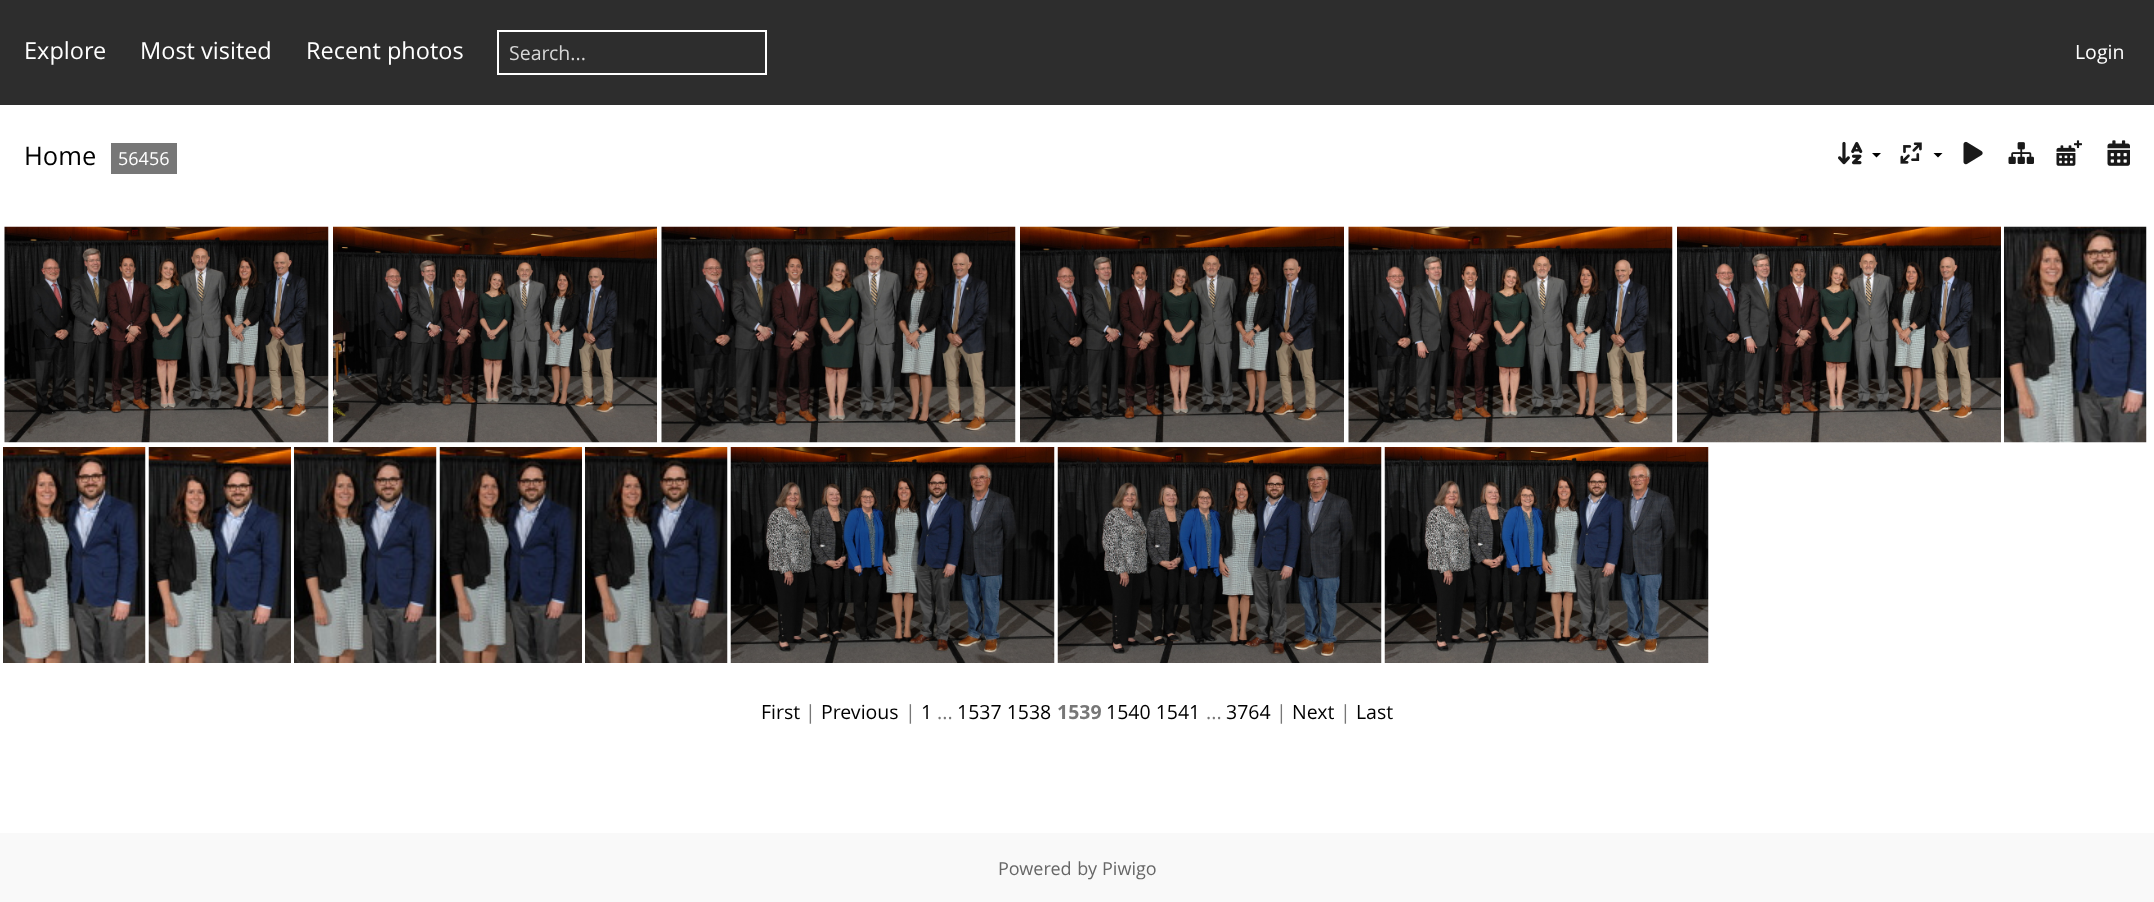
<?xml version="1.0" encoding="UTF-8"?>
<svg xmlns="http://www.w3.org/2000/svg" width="2154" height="902">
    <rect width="100%" height="100%" fill="#FFFFFF"/>
    <rect x="0" y="0" width="2154" height="105" fill="#2D2D2D"/>
    <text x="24" y="59" font-family="Open Sans" font-size="23.5" fill="#FFFFFF">Explore</text>
    <text x="140" y="59" font-family="Open Sans" font-size="23.5" fill="#FFFFFF">Most visited</text>
    <text x="306" y="59" font-family="Open Sans" font-size="23.5" fill="#FFFFFF">Recent photos</text>
    <rect x="498" y="31" width="268" height="43" fill="none" stroke="#FFFFFF" stroke-width="2"/>
    <text x="509" y="60" font-family="Open Sans" font-size="19.5" fill="#D6D6D6">Search...</text>
    <text x="2075" y="59" font-family="Open Sans" font-size="19.5" fill="#FFFFFF">Login</text>
    <text x="24" y="165" font-family="Open Sans" font-size="25.5" fill="#000000">Home</text>
    <rect x="111" y="143" width="66" height="31" fill="#777777"/>
    <text x="118" y="165" font-family="Open Sans" font-size="18" fill="#FFFFFF">56456</text>
    <image x="1838" y="141" width="25" height="24" href="img_01.png"/>
    <path d="M 1872 153 H 1881 L 1876.5 157.5 Z" fill="#000000"/>
    <image x="1900" y="142" width="22" height="22" href="img_02.png"/>
    <path d="M 1933.5 153 H 1942.5 L 1938 157.5 Z" fill="#000000"/>
    <image x="1963" y="141" width="20" height="24" href="img_03.png"/>
    <image x="2008" y="142" width="26" height="22" href="img_04.png"/>
    <image x="2056" y="140" width="26" height="26" href="img_05.png"/>
    <image x="2107" y="140" width="23" height="26" href="img_06.png"/>
    <image x="4" y="226" width="325" height="217" href="img_07.png"/>
    <image x="333" y="226" width="324" height="217" href="img_08.png"/>
    <image x="661" y="226" width="355" height="217" href="img_09.png"/>
    <image x="1020" y="226" width="324" height="217" href="img_10.png"/>
    <image x="1348" y="226" width="325" height="217" href="img_11.png"/>
    <image x="1677" y="226" width="324" height="217" href="img_12.png"/>
    <image x="2004" y="226" width="143" height="217" href="img_13.png"/>
    <image x="3" y="447" width="143" height="216" href="img_14.png"/>
    <image x="148" y="447" width="143" height="216" href="img_15.png"/>
    <image x="294" y="447" width="143" height="216" href="img_16.png"/>
    <image x="439" y="447" width="143" height="216" href="img_17.png"/>
    <image x="585" y="447" width="143" height="216" href="img_18.png"/>
    <image x="730" y="447" width="325" height="216" href="img_19.png"/>
    <image x="1057" y="447" width="325" height="216" href="img_20.png"/>
    <image x="1384" y="447" width="325" height="216" href="img_21.png"/>
    <text x="761" y="719" font-family="Open Sans" font-size="19.5" fill="#000000">First</text>
    <text x="805" y="719" font-family="Open Sans" font-size="19.5" fill="#777777">|</text>
    <text x="821" y="719" font-family="Open Sans" font-size="19.5" fill="#000000">Previous</text>
    <text x="905" y="719" font-family="Open Sans" font-size="19.5" fill="#777777">|</text>
    <text x="921" y="719" font-family="Open Sans" font-size="19.5" fill="#000000">1</text>
    <text x="937" y="719" font-family="Open Sans" font-size="19.5" fill="#777777">...</text>
    <text x="957" y="719" font-family="Open Sans" font-size="19.5" fill="#000000">1537 1538</text>
    <text x="1057" y="719" font-family="Open Sans" font-size="19.5" font-weight="700" fill="#777777">1539</text>
    <text x="1106" y="719" font-family="Open Sans" font-size="19.5" fill="#000000">1540 1541</text>
    <text x="1206" y="719" font-family="Open Sans" font-size="19.5" fill="#777777">...</text>
    <text x="1226" y="719" font-family="Open Sans" font-size="19.5" fill="#000000">3764</text>
    <text x="1276" y="719" font-family="Open Sans" font-size="19.5" fill="#777777">|</text>
    <text x="1292" y="719" font-family="Open Sans" font-size="19.5" fill="#000000">Next</text>
    <text x="1340" y="719" font-family="Open Sans" font-size="19.5" fill="#777777">|</text>
    <text x="1356" y="719" font-family="Open Sans" font-size="19.5" fill="#000000">Last</text>
    <rect x="0" y="833" width="2154" height="69" fill="#F9F9F9"/>
    <text x="998" y="875" word-spacing="1" font-family="Open Sans" font-size="18" fill="#666666">Powered by</text>
    <text x="1102" y="875" font-family="Open Sans" font-size="18" fill="#666666">Piwigo</text>
</svg>
